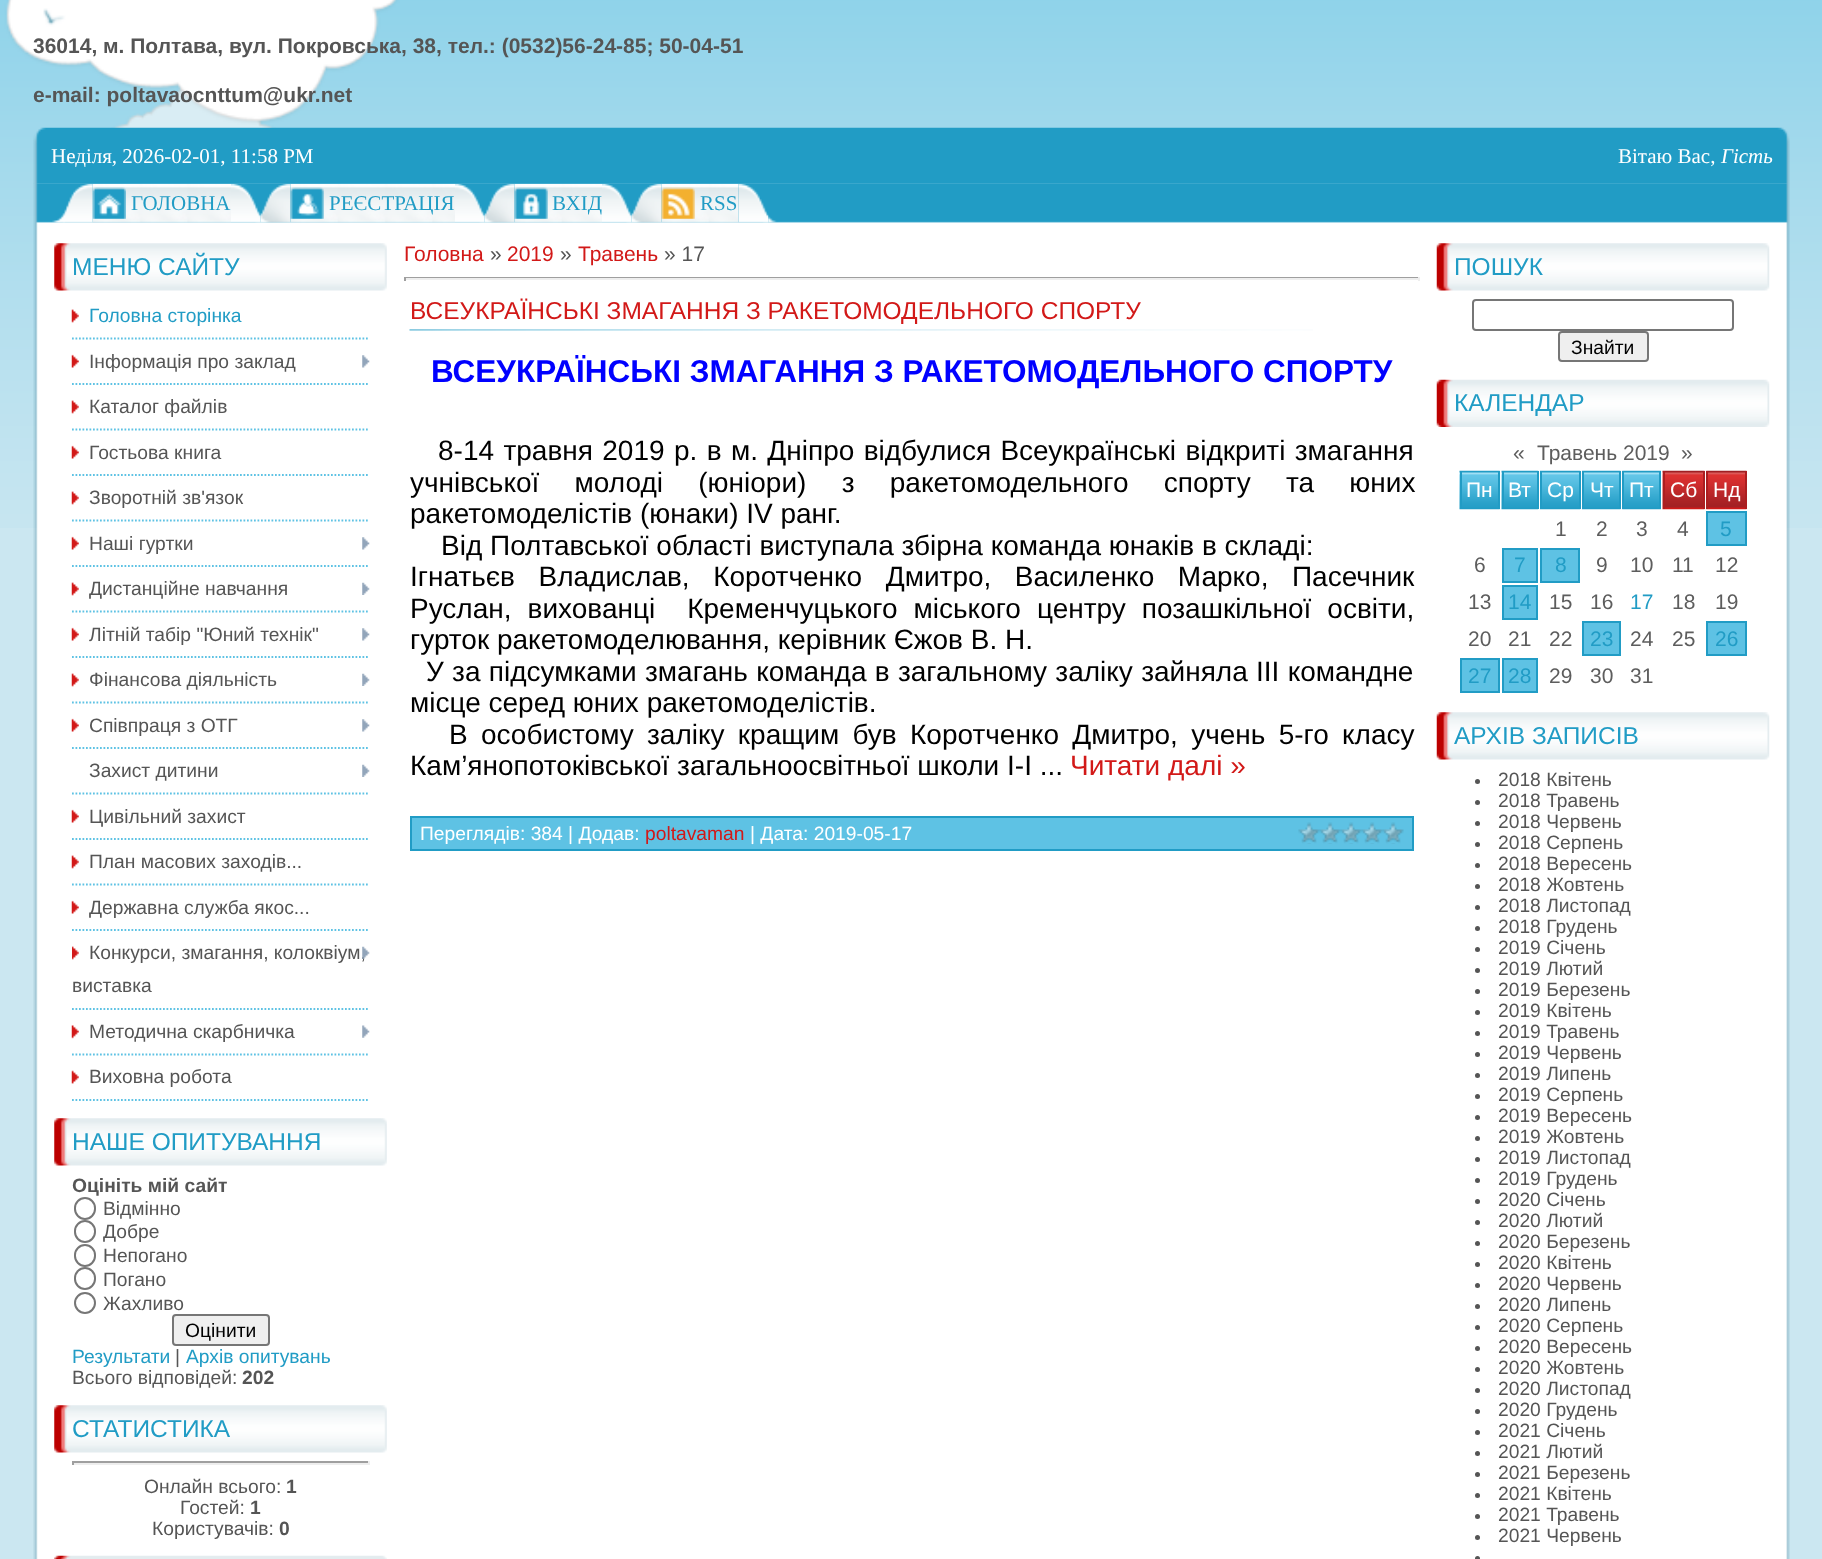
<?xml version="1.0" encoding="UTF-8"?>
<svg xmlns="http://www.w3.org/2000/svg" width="1822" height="1559">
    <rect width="100%" height="100%" fill="#CBE7F1"/>
    <image x="0" y="0" width="1822" height="528" href="img_01.png"/>
    <text x="33" y="53" font-family="Liberation Sans" font-size="21" font-weight="700" fill="#555555">36014, м. Полтава, вул. Покровська, 38, тел.: (0532)56-24-85; 50-04-51</text>
    <text x="33" y="102" font-family="Liberation Sans" font-size="21" font-weight="700" fill="#555555">e-mail: poltavaocnttum@ukr.net</text>
    <image x="33" y="183" width="1757" height="41" href="img_03.png"/>
    <image x="52" y="183" width="41" height="40" href="img_04.png"/>
    <image x="92" y="183" width="139" height="40" href="img_05.png"/>
    <image x="231" y="183" width="30" height="40" href="img_07.png"/>
    <image x="260" y="183" width="31" height="40" href="img_08.png"/>
    <image x="290" y="183" width="165" height="40" href="img_09.png"/>
    <image x="455" y="183" width="30" height="40" href="img_11.png"/>
    <image x="484" y="183" width="31" height="40" href="img_08.png"/>
    <image x="514" y="183" width="88" height="40" href="img_12.png"/>
    <image x="602" y="183" width="30" height="40" href="img_07.png"/>
    <image x="631" y="183" width="31" height="40" href="img_08.png"/>
    <image x="661" y="183" width="78" height="40" href="img_14.png"/>
    <image x="738" y="183" width="31" height="40" href="img_16.png"/>
    <image x="33" y="127" width="1757" height="57" href="img_02.png"/>
    <text x="51" y="163" font-family="Liberation Serif" font-size="21" fill="#FFFFFF">Неділя, 2026-02-01, 11:58 PM</text>
    <text x="1618" y="163" font-family="Liberation Serif" font-size="21" fill="#FFFFFF">Вітаю Вас,</text>
    <text x="1721" y="163" font-family="Liberation Serif" font-size="21" font-style="italic" fill="#FFFFFF">Гість</text>
    <image x="92" y="187" width="34" height="32" href="img_06.png"/>
    <text x="131" y="210" font-family="Liberation Serif" font-size="21" fill="#219CC5">ГОЛОВНА</text>
    <image x="290" y="187" width="34" height="32" href="img_10.png"/>
    <text x="329" y="210" font-family="Liberation Serif" font-size="21" fill="#219CC5">РЕЄСТРАЦІЯ</text>
    <image x="514" y="187" width="34" height="32" href="img_13.png"/>
    <text x="552" y="210" font-family="Liberation Serif" font-size="21" fill="#219CC5">ВХІД</text>
    <image x="661" y="187" width="34" height="32" href="img_15.png"/>
    <text x="700" y="210" font-family="Liberation Serif" font-size="21" fill="#219CC5">RSS</text>
    <image x="768" y="216" width="9" height="7" href="img_17.png"/>
    <image x="33" y="224" width="1757" height="1335" href="img_18.png"/>
    <image x="54" y="243" width="333" height="48" href="img_19.png"/>
    <text x="72" y="275" font-family="Liberation Sans" font-size="24.5" fill="#219CC5">МЕНЮ САЙТУ</text>
    <path d="M 72 338.5 H 369" fill="none" stroke="#5EC2E4" stroke-width="1.8" stroke-dasharray="1.75 1.75"/>
    <image x="71" y="309" width="8" height="14" href="img_20.png"/>
    <text x="89" y="322" font-family="Liberation Sans" font-size="19.25" fill="#219CC5">Головна сторінка</text>
    <path d="M 72 384 H 369" fill="none" stroke="#5EC2E4" stroke-width="1.8" stroke-dasharray="1.75 1.75"/>
    <image x="71" y="354" width="8" height="14" href="img_21.png"/>
    <text x="89" y="368" font-family="Liberation Sans" font-size="19.25" fill="#555555">Інформація про заклад</text>
    <image x="362" y="355" width="8" height="13" href="img_22.png"/>
    <path d="M 72 429.5 H 369" fill="none" stroke="#5EC2E4" stroke-width="1.8" stroke-dasharray="1.75 1.75"/>
    <image x="71" y="400" width="8" height="14" href="img_20.png"/>
    <text x="89" y="413" font-family="Liberation Sans" font-size="19.25" fill="#555555">Каталог файлів</text>
    <path d="M 72 475 H 369" fill="none" stroke="#5EC2E4" stroke-width="1.8" stroke-dasharray="1.75 1.75"/>
    <image x="71" y="445" width="8" height="14" href="img_21.png"/>
    <text x="89" y="459" font-family="Liberation Sans" font-size="19.25" fill="#555555">Гостьова книга</text>
    <path d="M 72 520.5 H 369" fill="none" stroke="#5EC2E4" stroke-width="1.8" stroke-dasharray="1.75 1.75"/>
    <image x="71" y="491" width="8" height="14" href="img_20.png"/>
    <text x="89" y="504" font-family="Liberation Sans" font-size="19.25" fill="#555555">Зворотній зв'язок</text>
    <path d="M 72 566 H 369" fill="none" stroke="#5EC2E4" stroke-width="1.8" stroke-dasharray="1.75 1.75"/>
    <image x="71" y="536" width="8" height="14" href="img_21.png"/>
    <text x="89" y="550" font-family="Liberation Sans" font-size="19.25" fill="#555555">Наші гуртки</text>
    <image x="362" y="537" width="8" height="13" href="img_22.png"/>
    <path d="M 72 611.5 H 369" fill="none" stroke="#5EC2E4" stroke-width="1.8" stroke-dasharray="1.75 1.75"/>
    <image x="71" y="582" width="8" height="14" href="img_20.png"/>
    <text x="89" y="595" font-family="Liberation Sans" font-size="19.25" fill="#555555">Дистанційне навчання</text>
    <image x="362" y="582" width="8" height="13" href="img_23.png"/>
    <path d="M 72 657 H 369" fill="none" stroke="#5EC2E4" stroke-width="1.8" stroke-dasharray="1.75 1.75"/>
    <image x="71" y="627" width="8" height="14" href="img_21.png"/>
    <text x="89" y="641" font-family="Liberation Sans" font-size="19.25" fill="#555555">Літній табір "Юний технік"</text>
    <image x="362" y="628" width="8" height="13" href="img_22.png"/>
    <path d="M 72 702.5 H 369" fill="none" stroke="#5EC2E4" stroke-width="1.8" stroke-dasharray="1.75 1.75"/>
    <image x="71" y="673" width="8" height="14" href="img_20.png"/>
    <text x="89" y="686" font-family="Liberation Sans" font-size="19.25" fill="#555555">Фінансова діяльність</text>
    <image x="362" y="673" width="8" height="13" href="img_23.png"/>
    <path d="M 72 748 H 369" fill="none" stroke="#5EC2E4" stroke-width="1.8" stroke-dasharray="1.75 1.75"/>
    <image x="71" y="718" width="8" height="14" href="img_21.png"/>
    <text x="89" y="732" font-family="Liberation Sans" font-size="19.25" fill="#555555">Співпраця з ОТГ</text>
    <image x="362" y="719" width="8" height="13" href="img_22.png"/>
    <path d="M 72 793.5 H 369" fill="none" stroke="#5EC2E4" stroke-width="1.8" stroke-dasharray="1.75 1.75"/>
    <text x="89" y="777" font-family="Liberation Sans" font-size="19.25" fill="#555555">Захист дитини</text>
    <image x="362" y="764" width="8" height="13" href="img_23.png"/>
    <path d="M 72 839 H 369" fill="none" stroke="#5EC2E4" stroke-width="1.8" stroke-dasharray="1.75 1.75"/>
    <image x="71" y="809" width="8" height="14" href="img_21.png"/>
    <text x="89" y="823" font-family="Liberation Sans" font-size="19.25" fill="#555555">Цивільний захист</text>
    <path d="M 72 884.5 H 369" fill="none" stroke="#5EC2E4" stroke-width="1.8" stroke-dasharray="1.75 1.75"/>
    <image x="71" y="855" width="8" height="14" href="img_20.png"/>
    <text x="89" y="868" font-family="Liberation Sans" font-size="19.25" fill="#555555">План масових заходів...</text>
    <path d="M 72 930 H 369" fill="none" stroke="#5EC2E4" stroke-width="1.8" stroke-dasharray="1.75 1.75"/>
    <image x="71" y="900" width="8" height="14" href="img_21.png"/>
    <text x="89" y="914" font-family="Liberation Sans" font-size="19.25" fill="#555555">Державна служба якос...</text>
    <path d="M 72 1009 H 369" fill="none" stroke="#5EC2E4" stroke-width="1.8" stroke-dasharray="1.75 1.75"/>
    <image x="72" y="946" width="7" height="14" href="img_24.png"/>
    <text x="89" y="959" font-family="Liberation Sans" font-size="19.25" fill="#555555">Конкурси, змагання, колоквіум,</text>
    <image x="362" y="946" width="8" height="13" href="img_25.png"/>
    <text x="72" y="992" font-family="Liberation Sans" font-size="19.25" fill="#555555">виставка</text>
    <path d="M 72 1054.5 H 369" fill="none" stroke="#5EC2E4" stroke-width="1.8" stroke-dasharray="1.75 1.75"/>
    <image x="71" y="1025" width="8" height="14" href="img_26.png"/>
    <text x="89" y="1038" font-family="Liberation Sans" font-size="19.25" fill="#555555">Методична скарбничка</text>
    <image x="362" y="1025" width="8" height="13" href="img_27.png"/>
    <path d="M 72 1100 H 369" fill="none" stroke="#5EC2E4" stroke-width="1.8" stroke-dasharray="1.75 1.75"/>
    <image x="71" y="1070" width="8" height="14" href="img_28.png"/>
    <text x="89" y="1083" font-family="Liberation Sans" font-size="19.25" fill="#555555">Виховна робота</text>
    <image x="54" y="1118" width="333" height="48" href="img_19.png"/>
    <text x="72" y="1150" font-family="Liberation Sans" font-size="24.5" fill="#219CC5">НАШЕ ОПИТУВАННЯ</text>
    <text x="72" y="1192" font-family="Liberation Sans" font-size="19.25" font-weight="700" fill="#555555">Оцініть мій сайт</text>
    <rect x="75" y="1198" width="20" height="21" rx="10" fill="none" stroke="#767676" stroke-width="2"/>
    <text x="103" y="1215" font-family="Liberation Sans" font-size="19.25" fill="#555555">Відмінно</text>
    <rect x="75" y="1221" width="20" height="21" rx="10" fill="none" stroke="#767676" stroke-width="2"/>
    <text x="103" y="1238" font-family="Liberation Sans" font-size="19.25" fill="#555555">Добре</text>
    <rect x="75" y="1245" width="20" height="21" rx="10" fill="none" stroke="#767676" stroke-width="2"/>
    <text x="103" y="1262" font-family="Liberation Sans" font-size="19.25" fill="#555555">Непогано</text>
    <rect x="75" y="1268" width="20" height="21" rx="10" fill="none" stroke="#767676" stroke-width="2"/>
    <text x="103" y="1286" font-family="Liberation Sans" font-size="19.25" fill="#555555">Погано</text>
    <circle cx="85" cy="1303" r="10" fill="none" stroke="#767676" stroke-width="2"/>
    <text x="103" y="1310" font-family="Liberation Sans" font-size="19.25" fill="#555555">Жахливо</text>
    <rect x="173" y="1315" width="96" height="30" rx="3" fill="#EFEFEF" stroke="#767676" stroke-width="2"/>
    <text x="185" y="1337" font-family="Liberation Sans" font-size="19.25" fill="#000000">Оцінити</text>
    <text x="72" y="1363" font-family="Liberation Sans" font-size="19.25" fill="#219CC5">Результати</text>
    <text x="175" y="1363" font-family="Liberation Sans" font-size="19.25" fill="#555555">|</text>
    <text x="186" y="1363" font-family="Liberation Sans" font-size="19.25" fill="#219CC5">Архів опитувань</text>
    <text x="72" y="1384" font-family="Liberation Sans" font-size="19.25" fill="#555555">Всього відповідей:</text>
    <text x="242" y="1384" font-family="Liberation Sans" font-size="19.25" font-weight="700" fill="#555555">202</text>
    <image x="54" y="1405" width="333" height="48" href="img_19.png"/>
    <text x="72" y="1437" font-family="Liberation Sans" font-size="24.5" fill="#219CC5">СТАТИСТИКА</text>
    <rect x="72" y="1461" width="297" height="2" fill="#9F9F9F"/>
    <rect x="368" y="1461" width="2" height="4" fill="#EEEEEE"/>
    <rect x="72" y="1463" width="297" height="2" fill="#EEEEEE"/>
    <rect x="72" y="1461" width="2" height="4" fill="#9F9F9F"/>
    <text x="144" y="1493" font-family="Liberation Sans" font-size="19.25" fill="#555555">Онлайн всього:</text>
    <text x="286" y="1493" font-family="Liberation Sans" font-size="19.25" font-weight="700" fill="#555555">1</text>
    <text x="180" y="1514" font-family="Liberation Sans" font-size="19.25" fill="#555555">Гостей:</text>
    <text x="250" y="1514" font-family="Liberation Sans" font-size="19.25" font-weight="700" fill="#555555">1</text>
    <text x="152" y="1535" font-family="Liberation Sans" font-size="19.25" fill="#555555">Користувачів:</text>
    <text x="279" y="1535" font-family="Liberation Sans" font-size="19.25" font-weight="700" fill="#555555">0</text>
    <image x="54" y="1555" width="333" height="4" href="img_29.png"/>
    <text x="404" y="261" font-family="Liberation Sans" font-size="21" fill="#D21918">Головна</text>
    <text x="490" y="261" font-family="Liberation Sans" font-size="21" fill="#555555">»</text>
    <text x="507" y="261" font-family="Liberation Sans" font-size="21" fill="#D21918">2019</text>
    <text x="560" y="261" font-family="Liberation Sans" font-size="21" fill="#555555">»</text>
    <text x="578" y="261" font-family="Liberation Sans" font-size="21" fill="#D21918">Травень</text>
    <text x="664" y="261" font-family="Liberation Sans" font-size="21" fill="#555555">» 17</text>
    <rect x="404" y="277" width="1015" height="1" fill="#9F9F9F"/>
    <rect x="1418" y="277" width="2" height="4" fill="#EEEEEE"/>
    <rect x="404" y="278" width="1015" height="2" fill="#EEEEEE"/>
    <rect x="404" y="277" width="2" height="4" fill="#9F9F9F"/>
    <text x="410" y="319" font-family="Liberation Sans" font-size="24.5" fill="#D21918">ВСЕУКРАЇНСЬКІ ЗМАГАННЯ З РАКЕТОМОДЕЛЬНОГО СПОРТУ</text>
    <image x="409" y="329" width="904" height="2" href="img_30.png"/>
    <text x="431" y="382" font-family="Liberation Sans" font-size="31.5" font-weight="700" fill="#0000FF">ВСЕУКРАЇНСЬКІ ЗМАГАННЯ З РАКЕТОМОДЕЛЬНОГО СПОРТУ</text>
    <text x="438" y="460" word-spacing="1.6" font-family="Liberation Sans" font-size="28" fill="#000000">8-14 травня 2019 р. в м. Дніпро відбулися Всеукраїнські відкриті змагання</text>
    <text font-family="Liberation Sans" font-size="28" fill="#000000">
        <tspan x="410" y="492" word-spacing="27.5">учнівської молоді (юніори) з ракетомодельного спорту та юних</tspan>
        <tspan x="410" y="523">ракетомоделістів (юнаки) IV ранг.</tspan>
    </text>
    <text x="441" y="555" font-family="Liberation Sans" font-size="28" fill="#000000">Від Полтавської області виступала збірна команда юнаків в складі:</text>
    <text font-family="Liberation Sans" font-size="28" fill="#000000" xml:space="preserve"><tspan x="410" y="586" word-spacing="15.75">Ігнатьєв Владислав, Коротченко Дмитро, Василенко Марко, Пасечник</tspan><tspan x="410" y="618" word-spacing="8.25">Руслан, вихованці  Кременчуцького міського центру позашкільної освіти,</tspan><tspan x="410" y="649">гурток ракетомоделювання, керівник Єжов В. Н.</tspan></text>
    <text x="426" y="681" word-spacing="0.5" font-family="Liberation Sans" font-size="28" fill="#000000">У за підсумками змагань команда в загальному заліку зайняла III командне</text>
    <text x="410" y="712" font-family="Liberation Sans" font-size="28" fill="#000000">місце серед юних ракетомоделістів.</text>
    <text x="449" y="744" word-spacing="5.5" font-family="Liberation Sans" font-size="28" fill="#000000">В особистому заліку кращим був Коротченко Дмитро, учень 5-го класу</text>
    <text x="410" y="775" font-family="Liberation Sans" font-size="28" fill="#000000">Кам’янопотоківської загальноосвітньої школи I-I ...</text>
    <text x="1070" y="775" font-family="Liberation Sans" font-size="28" fill="#D21918">Читати далі »</text>
    <rect x="411" y="817" width="1002" height="33" fill="#5EC2E4" stroke="#219CC5" stroke-width="2"/>
    <text x="420" y="840" font-family="Liberation Sans" font-size="19.25" fill="#FFFFFF">Переглядів: 384 | Додав:</text>
    <text x="645" y="840" font-family="Liberation Sans" font-size="19.25" fill="#D21918">poltavaman</text>
    <text x="750" y="840" font-family="Liberation Sans" font-size="19.25" fill="#FFFFFF">| Дата: 2019-05-17</text>
    <image x="1298" y="822" width="106" height="22" href="img_31.png"/>
    <image x="1436" y="243" width="334" height="48" href="img_32.png"/>
    <text x="1454" y="275" font-family="Liberation Sans" font-size="24.5" fill="#219CC5">ПОШУК</text>
    <rect x="1473" y="300" width="260" height="30" rx="3" fill="none" stroke="#767676" stroke-width="2"/>
    <rect x="1559" y="332" width="89" height="29" rx="3" fill="#EFEFEF" stroke="#767676" stroke-width="2"/>
    <text x="1571" y="354" font-family="Liberation Sans" font-size="19.25" fill="#000000">Знайти</text>
    <image x="1436" y="379" width="334" height="48" href="img_33.png"/>
    <text x="1454" y="411" font-family="Liberation Sans" font-size="24.5" fill="#219CC5">КАЛЕНДАР</text>
    <text x="1513" y="460" font-family="Liberation Sans" font-size="21" fill="#5D5D5D">«</text>
    <text x="1537" y="460" font-family="Liberation Sans" font-size="21" fill="#5D5D5D">Травень 2019</text>
    <text x="1681" y="460" font-family="Liberation Sans" font-size="21" fill="#5D5D5D">»</text>
    <image x="1459" y="470" width="41" height="40" href="img_34.png"/>
    <rect x="1498" y="471" width="2" height="38" fill="#219CC5"/>
    <rect x="1460" y="471" width="2" height="38" fill="#219CC5"/>
    <text x="1466" y="497" font-family="Liberation Sans" font-size="21" fill="#FFFFFF">Пн</text>
    <image x="1501" y="470" width="38" height="40" href="img_35.png"/>
    <rect x="1537" y="471" width="2" height="38" fill="#219CC5"/>
    <rect x="1502" y="471" width="2" height="38" fill="#219CC5"/>
    <text x="1508" y="497" font-family="Liberation Sans" font-size="21" fill="#FFFFFF">Вт</text>
    <image x="1540" y="470" width="41" height="40" href="img_36.png"/>
    <rect x="1579" y="471" width="2" height="38" fill="#219CC5"/>
    <rect x="1540" y="471" width="2" height="38" fill="#219CC5"/>
    <text x="1547" y="497" font-family="Liberation Sans" font-size="21" fill="#FFFFFF">Ср</text>
    <image x="1582" y="470" width="39" height="40" href="img_37.png"/>
    <rect x="1619" y="471" width="2" height="38" fill="#219CC5"/>
    <rect x="1582" y="471" width="2" height="38" fill="#219CC5"/>
    <text x="1590" y="497" font-family="Liberation Sans" font-size="21" fill="#FFFFFF">Чт</text>
    <image x="1622" y="470" width="39" height="40" href="img_38.png"/>
    <rect x="1659" y="471" width="2" height="38" fill="#219CC5"/>
    <rect x="1622" y="471" width="2" height="38" fill="#219CC5"/>
    <text x="1629" y="497" font-family="Liberation Sans" font-size="21" fill="#FFFFFF">Пт</text>
    <image x="1662" y="470" width="43" height="40" href="img_39.png"/>
    <rect x="1703" y="471" width="2" height="38" fill="#AC1E20"/>
    <rect x="1663" y="471" width="2" height="38" fill="#AC1E20"/>
    <text x="1670" y="497" font-family="Liberation Sans" font-size="21" fill="#FFFFFF">Сб</text>
    <image x="1706" y="470" width="41" height="40" href="img_40.png"/>
    <rect x="1745" y="471" width="2" height="38" fill="#AC1E20"/>
    <rect x="1706" y="471" width="2" height="38" fill="#AC1E20"/>
    <text x="1713" y="497" font-family="Liberation Sans" font-size="21" fill="#FFFFFF">Нд</text>
    <text x="1555" y="536" font-family="Liberation Sans" font-size="21" fill="#5D5D5D">1</text>
    <text x="1596" y="536" font-family="Liberation Sans" font-size="21" fill="#5D5D5D">2</text>
    <text x="1636" y="536" font-family="Liberation Sans" font-size="21" fill="#5D5D5D">3</text>
    <text x="1677" y="536" font-family="Liberation Sans" font-size="21" fill="#5D5D5D">4</text>
    <rect x="1707" y="512" width="39" height="33" fill="#5EC2E4" stroke="#219CC5" stroke-width="2"/>
    <text x="1720" y="536" font-family="Liberation Sans" font-size="21" fill="#219CC5">5</text>
    <text x="1474" y="572" font-family="Liberation Sans" font-size="21" fill="#5D5D5D">6</text>
    <rect x="1503" y="549" width="34" height="33" fill="#5EC2E4" stroke="#219CC5" stroke-width="2"/>
    <text x="1514" y="572" font-family="Liberation Sans" font-size="21" fill="#219CC5">7</text>
    <rect x="1541" y="549" width="38" height="33" fill="#5EC2E4" stroke="#219CC5" stroke-width="2"/>
    <text x="1555" y="572" font-family="Liberation Sans" font-size="21" fill="#219CC5">8</text>
    <text x="1596" y="572" font-family="Liberation Sans" font-size="21" fill="#5D5D5D">9</text>
    <text x="1630" y="572" font-family="Liberation Sans" font-size="21" fill="#5D5D5D">10</text>
    <text x="1672" y="572" font-family="Liberation Sans" font-size="21" fill="#5D5D5D">11</text>
    <text x="1715" y="572" font-family="Liberation Sans" font-size="21" fill="#5D5D5D">12</text>
    <text x="1468" y="609" font-family="Liberation Sans" font-size="21" fill="#5D5D5D">13</text>
    <rect x="1503" y="586" width="34" height="33" fill="#5EC2E4" stroke="#219CC5" stroke-width="2"/>
    <text x="1508" y="609" font-family="Liberation Sans" font-size="21" fill="#219CC5">14</text>
    <text x="1549" y="609" font-family="Liberation Sans" font-size="21" fill="#5D5D5D">15</text>
    <text x="1590" y="609" font-family="Liberation Sans" font-size="21" fill="#5D5D5D">16</text>
    <text x="1630" y="609" font-family="Liberation Sans" font-size="21" fill="#219CC5">17</text>
    <text x="1672" y="609" font-family="Liberation Sans" font-size="21" fill="#5D5D5D">18</text>
    <text x="1715" y="609" font-family="Liberation Sans" font-size="21" fill="#5D5D5D">19</text>
    <text x="1468" y="646" font-family="Liberation Sans" font-size="21" fill="#5D5D5D">20</text>
    <text x="1508" y="646" font-family="Liberation Sans" font-size="21" fill="#5D5D5D">21</text>
    <text x="1549" y="646" font-family="Liberation Sans" font-size="21" fill="#5D5D5D">22</text>
    <rect x="1583" y="622" width="37" height="33" fill="#5EC2E4" stroke="#219CC5" stroke-width="2"/>
    <text x="1590" y="646" font-family="Liberation Sans" font-size="21" fill="#219CC5">23</text>
    <text x="1630" y="646" font-family="Liberation Sans" font-size="21" fill="#5D5D5D">24</text>
    <text x="1672" y="646" font-family="Liberation Sans" font-size="21" fill="#5D5D5D">25</text>
    <rect x="1707" y="622" width="39" height="33" fill="#5EC2E4" stroke="#219CC5" stroke-width="2"/>
    <text x="1715" y="646" font-family="Liberation Sans" font-size="21" fill="#219CC5">26</text>
    <rect x="1461" y="659" width="38" height="33" fill="#5EC2E4" stroke="#219CC5" stroke-width="2"/>
    <text x="1468" y="683" font-family="Liberation Sans" font-size="21" fill="#219CC5">27</text>
    <rect x="1503" y="659" width="34" height="33" fill="#5EC2E4" stroke="#219CC5" stroke-width="2"/>
    <text x="1508" y="683" font-family="Liberation Sans" font-size="21" fill="#219CC5">28</text>
    <text x="1549" y="683" font-family="Liberation Sans" font-size="21" fill="#5D5D5D">29</text>
    <text x="1590" y="683" font-family="Liberation Sans" font-size="21" fill="#5D5D5D">30</text>
    <text x="1630" y="683" font-family="Liberation Sans" font-size="21" fill="#5D5D5D">31</text>
    <image x="1436" y="712" width="334" height="48" href="img_32.png"/>
    <text x="1454" y="744" font-family="Liberation Sans" font-size="24.5" fill="#219CC5">АРХІВ ЗАПИСІВ</text>
    <circle cx="1477.5" cy="781.5" r="2.5" fill="#555555"/>
    <text x="1498" y="786" font-family="Liberation Sans" font-size="19.25" fill="#555555">2018 Квітень</text>
    <circle cx="1477.5" cy="802.5" r="2.5" fill="#555555"/>
    <text x="1498" y="807" font-family="Liberation Sans" font-size="19.25" fill="#555555">2018 Травень</text>
    <circle cx="1477.5" cy="823.5" r="2.5" fill="#555555"/>
    <text x="1498" y="828" font-family="Liberation Sans" font-size="19.25" fill="#555555">2018 Червень</text>
    <circle cx="1477.5" cy="844.5" r="2.5" fill="#555555"/>
    <text x="1498" y="849" font-family="Liberation Sans" font-size="19.25" fill="#555555">2018 Серпень</text>
    <circle cx="1477.5" cy="865.5" r="2.5" fill="#555555"/>
    <text x="1498" y="870" font-family="Liberation Sans" font-size="19.25" fill="#555555">2018 Вересень</text>
    <circle cx="1477.5" cy="886.5" r="2.5" fill="#555555"/>
    <text x="1498" y="891" font-family="Liberation Sans" font-size="19.25" fill="#555555">2018 Жовтень</text>
    <circle cx="1477.5" cy="907.5" r="2.5" fill="#555555"/>
    <text x="1498" y="912" font-family="Liberation Sans" font-size="19.25" fill="#555555">2018 Листопад</text>
    <circle cx="1477.5" cy="928.5" r="2.5" fill="#555555"/>
    <text x="1498" y="933" font-family="Liberation Sans" font-size="19.25" fill="#555555">2018 Грудень</text>
    <circle cx="1477.5" cy="949.5" r="2.5" fill="#555555"/>
    <text x="1498" y="954" font-family="Liberation Sans" font-size="19.25" fill="#555555">2019 Січень</text>
    <circle cx="1477.5" cy="970.5" r="2.5" fill="#555555"/>
    <text x="1498" y="975" font-family="Liberation Sans" font-size="19.25" fill="#555555">2019 Лютий</text>
    <circle cx="1477.5" cy="991.5" r="2.5" fill="#555555"/>
    <text x="1498" y="996" font-family="Liberation Sans" font-size="19.25" fill="#555555">2019 Березень</text>
    <circle cx="1477.5" cy="1012.5" r="2.5" fill="#555555"/>
    <text x="1498" y="1017" font-family="Liberation Sans" font-size="19.25" fill="#555555">2019 Квітень</text>
    <circle cx="1477.5" cy="1033.5" r="2.5" fill="#555555"/>
    <text x="1498" y="1038" font-family="Liberation Sans" font-size="19.25" fill="#555555">2019 Травень</text>
    <circle cx="1477.5" cy="1054.5" r="2.5" fill="#555555"/>
    <text x="1498" y="1059" font-family="Liberation Sans" font-size="19.25" fill="#555555">2019 Червень</text>
    <circle cx="1477.5" cy="1075.5" r="2.5" fill="#555555"/>
    <text x="1498" y="1080" font-family="Liberation Sans" font-size="19.25" fill="#555555">2019 Липень</text>
    <circle cx="1477.5" cy="1096.5" r="2.5" fill="#555555"/>
    <text x="1498" y="1101" font-family="Liberation Sans" font-size="19.25" fill="#555555">2019 Серпень</text>
    <circle cx="1477.5" cy="1117.5" r="2.5" fill="#555555"/>
    <text x="1498" y="1122" font-family="Liberation Sans" font-size="19.25" fill="#555555">2019 Вересень</text>
    <circle cx="1477.5" cy="1138.5" r="2.5" fill="#555555"/>
    <text x="1498" y="1143" font-family="Liberation Sans" font-size="19.25" fill="#555555">2019 Жовтень</text>
    <circle cx="1477.5" cy="1159.5" r="2.5" fill="#555555"/>
    <text x="1498" y="1164" font-family="Liberation Sans" font-size="19.25" fill="#555555">2019 Листопад</text>
    <circle cx="1477.5" cy="1180.5" r="2.5" fill="#555555"/>
    <text x="1498" y="1185" font-family="Liberation Sans" font-size="19.25" fill="#555555">2019 Грудень</text>
    <circle cx="1477.5" cy="1201.5" r="2.5" fill="#555555"/>
    <text x="1498" y="1206" font-family="Liberation Sans" font-size="19.25" fill="#555555">2020 Січень</text>
    <circle cx="1477.5" cy="1222.5" r="2.5" fill="#555555"/>
    <text x="1498" y="1227" font-family="Liberation Sans" font-size="19.25" fill="#555555">2020 Лютий</text>
    <circle cx="1477.5" cy="1243.5" r="2.5" fill="#555555"/>
    <text x="1498" y="1248" font-family="Liberation Sans" font-size="19.25" fill="#555555">2020 Березень</text>
    <circle cx="1477.5" cy="1264.5" r="2.5" fill="#555555"/>
    <text x="1498" y="1269" font-family="Liberation Sans" font-size="19.25" fill="#555555">2020 Квітень</text>
    <circle cx="1477.5" cy="1285.5" r="2.5" fill="#555555"/>
    <text x="1498" y="1290" font-family="Liberation Sans" font-size="19.25" fill="#555555">2020 Червень</text>
    <circle cx="1477.5" cy="1306.5" r="2.5" fill="#555555"/>
    <text x="1498" y="1311" font-family="Liberation Sans" font-size="19.25" fill="#555555">2020 Липень</text>
    <circle cx="1477.5" cy="1327.5" r="2.5" fill="#555555"/>
    <text x="1498" y="1332" font-family="Liberation Sans" font-size="19.25" fill="#555555">2020 Серпень</text>
    <circle cx="1477.5" cy="1348.5" r="2.5" fill="#555555"/>
    <text x="1498" y="1353" font-family="Liberation Sans" font-size="19.25" fill="#555555">2020 Вересень</text>
    <circle cx="1477.5" cy="1369.5" r="2.5" fill="#555555"/>
    <text x="1498" y="1374" font-family="Liberation Sans" font-size="19.25" fill="#555555">2020 Жовтень</text>
    <circle cx="1477.5" cy="1390.5" r="2.5" fill="#555555"/>
    <text x="1498" y="1395" font-family="Liberation Sans" font-size="19.25" fill="#555555">2020 Листопад</text>
    <circle cx="1477.5" cy="1411.5" r="2.5" fill="#555555"/>
    <text x="1498" y="1416" font-family="Liberation Sans" font-size="19.25" fill="#555555">2020 Грудень</text>
    <circle cx="1477.5" cy="1432.5" r="2.5" fill="#555555"/>
    <text x="1498" y="1437" font-family="Liberation Sans" font-size="19.25" fill="#555555">2021 Січень</text>
    <circle cx="1477.5" cy="1453.5" r="2.5" fill="#555555"/>
    <text x="1498" y="1458" font-family="Liberation Sans" font-size="19.25" fill="#555555">2021 Лютий</text>
    <circle cx="1477.5" cy="1474.5" r="2.5" fill="#555555"/>
    <text x="1498" y="1479" font-family="Liberation Sans" font-size="19.25" fill="#555555">2021 Березень</text>
    <circle cx="1477.5" cy="1495.5" r="2.5" fill="#555555"/>
    <text x="1498" y="1500" font-family="Liberation Sans" font-size="19.25" fill="#555555">2021 Квітень</text>
    <circle cx="1477.5" cy="1516.5" r="2.5" fill="#555555"/>
    <text x="1498" y="1521" font-family="Liberation Sans" font-size="19.25" fill="#555555">2021 Травень</text>
    <circle cx="1477.5" cy="1537.5" r="2.5" fill="#555555"/>
    <text x="1498" y="1542" font-family="Liberation Sans" font-size="19.25" fill="#555555">2021 Червень</text>
    <circle cx="1477.5" cy="1558.5" r="2.5" fill="#555555"/>
</svg>
